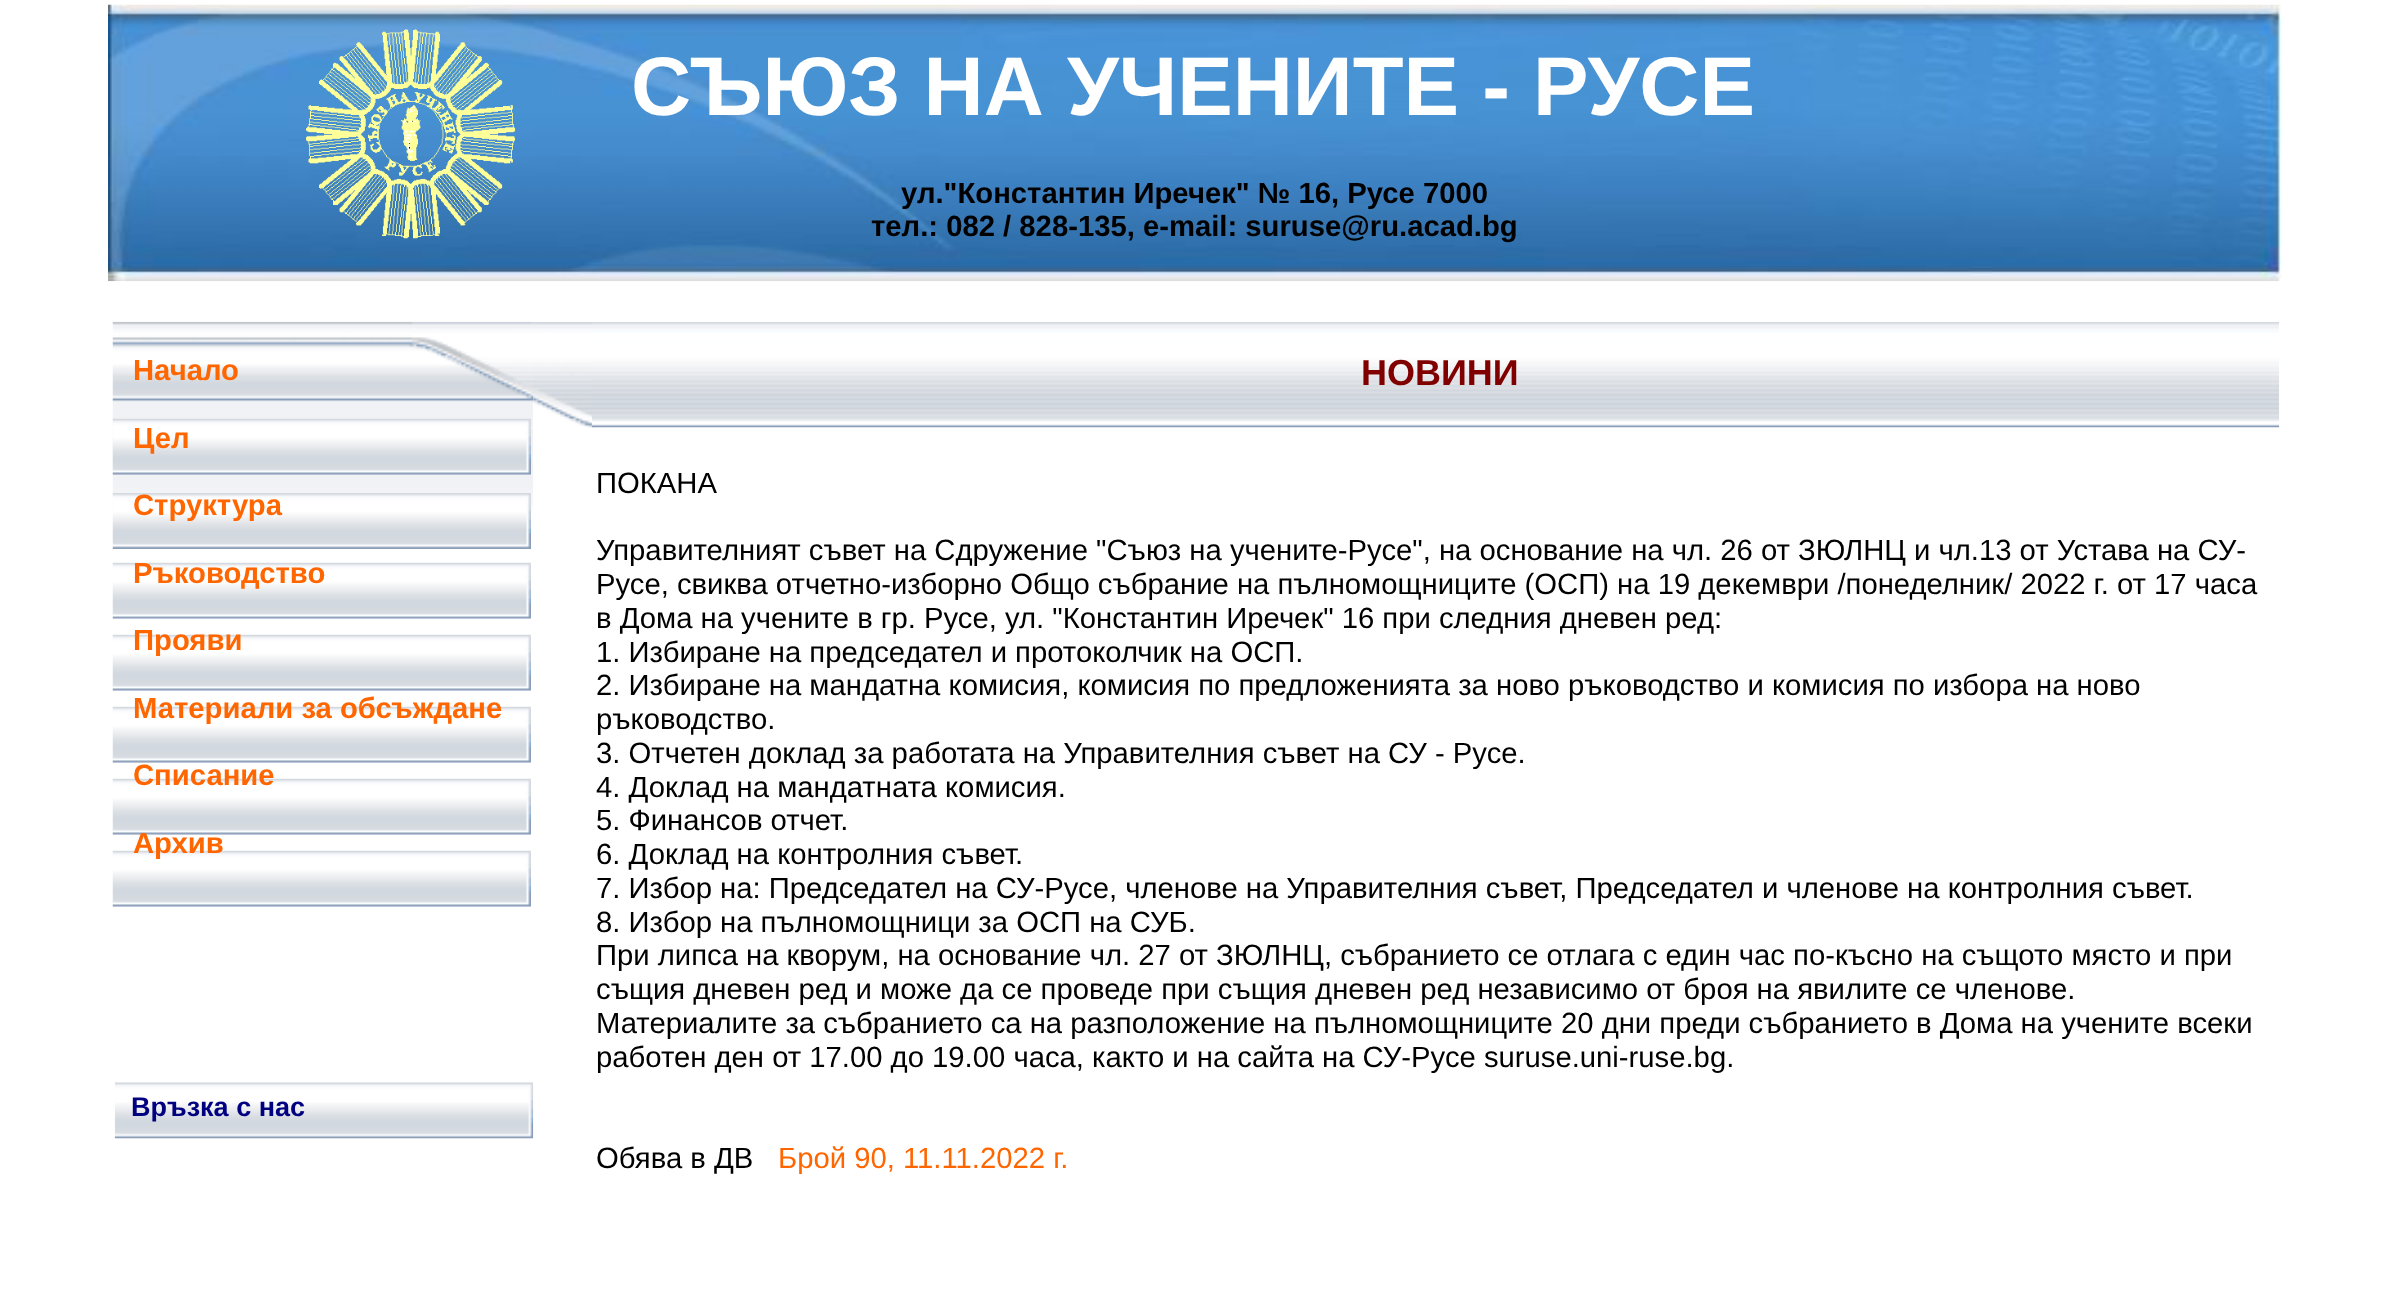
<?xml version="1.0" encoding="UTF-8"?>
<svg xmlns="http://www.w3.org/2000/svg" width="2388" height="1291">
    <rect width="100%" height="100%" fill="#FFFFFF"/>
    <image x="108" y="4" width="2174" height="278" href="img_01.png"/>
    <image x="306" y="29" width="210" height="210" href="img_02.png"/>
    <text x="631" y="115" font-family="Liberation Sans" font-size="83.25" font-weight="700" fill="#FFFFFF">СЪЮЗ НА УЧЕНИТЕ - РУСЕ</text>
    <text x="901" y="203" font-family="Liberation Sans" font-size="29.25" font-weight="700" fill="#000000">ул."Кoнстантин Иречек" № 16, Русе 7000</text>
    <text x="871" y="236" font-family="Liberation Sans" font-size="29.25" font-weight="700" fill="#000000">тел.: 082 / 828-135, e-mail: suruse@ru.acad.bg</text>
    <image x="531" y="322" width="63" height="106" href="img_04.png"/>
    <image x="112" y="321" width="421" height="106" href="img_03.png"/>
    <image x="591" y="322" width="1689" height="106" href="img_05.png"/>
    <text x="133" y="380" font-family="Liberation Sans" font-size="29.25" font-weight="700" fill="#FF6600">Начало</text>
    <image x="112" y="427" width="421" height="84" href="img_07.png"/>
    <image x="112" y="418" width="419" height="57" href="img_06.png"/>
    <text x="133" y="448" font-family="Liberation Sans" font-size="29.25" font-weight="700" fill="#FF6600">Цел</text>
    <image x="112" y="493" width="419" height="56" href="img_08.png"/>
    <text x="133" y="515" font-family="Liberation Sans" font-size="29.25" font-weight="700" fill="#FF6600">Структура</text>
    <image x="112" y="562" width="419" height="57" href="img_09.png"/>
    <text x="133" y="583" font-family="Liberation Sans" font-size="29.25" font-weight="700" fill="#FF6600">Ръководство</text>
    <image x="112" y="634" width="419" height="57" href="img_10.png"/>
    <text x="133" y="650" font-family="Liberation Sans" font-size="29.25" font-weight="700" fill="#FF6600">Прояви</text>
    <image x="112" y="706" width="419" height="57" href="img_10.png"/>
    <text x="133" y="718" font-family="Liberation Sans" font-size="29.25" font-weight="700" fill="#FF6600">Материали за обсъждане</text>
    <image x="112" y="778" width="419" height="57" href="img_11.png"/>
    <text x="133" y="785" font-family="Liberation Sans" font-size="29.25" font-weight="700" fill="#FF6600">Списание</text>
    <image x="112" y="850" width="419" height="57" href="img_10.png"/>
    <text x="133" y="853" font-family="Liberation Sans" font-size="29.25" font-weight="700" fill="#FF6600">Архив</text>
    <text x="1361" y="385" font-family="Liberation Sans" font-size="36" font-weight="700" fill="#800000">НОВИНИ</text>
    <text x="596" y="493" font-family="Liberation Sans" font-size="29.25" fill="#000000">ПОКАНА</text>
    <text font-family="Liberation Sans" font-size="29.25" fill="#000000">
        <tspan x="596" y="560">Управителният съвет на Сдружение "Съюз на учените-Русе", на основание на чл. 26 от ЗЮЛНЦ и чл.13 от Устава на СУ-</tspan>
        <tspan x="596" y="594">Русе, свиква отчетно-изборно Общо събрание на пълномощниците (ОСП) на 19 декември /понеделник/ 2022 г. от 17 часа</tspan>
        <tspan x="596" y="628">в Дома на учените в гр. Русе, ул. "Константин Иречек" 16 при следния дневен ред:</tspan>
        <tspan x="596" y="662">1. Избиране на председател и протоколчик на ОСП.</tspan>
        <tspan x="596" y="695">2. Избиране на мандатна комисия, комисия по предложенията за ново ръководство и комисия по избора на ново</tspan>
        <tspan x="596" y="729">ръководство.</tspan>
        <tspan x="596" y="763">3. Отчетен доклад за работата на Управителния съвет на СУ - Русе.</tspan>
        <tspan x="596" y="797">4. Доклад на мандатната комисия.</tspan>
        <tspan x="596" y="830">5. Финансов отчет.</tspan>
        <tspan x="596" y="864">6. Доклад на контролния съвет.</tspan>
        <tspan x="596" y="898">7. Избор на: Председател на СУ-Русе, членове на Управителния съвет, Председател и членове на контролния съвет.</tspan>
        <tspan x="596" y="932">8. Избор на пълномощници за ОСП на СУБ.</tspan>
        <tspan x="596" y="965">При липса на кворум, на основание чл. 27 от ЗЮЛНЦ, събранието се отлага с един час по-късно на същото място и при</tspan>
        <tspan x="596" y="999">същия дневен ред и може да се проведе при същия дневен ред независимо от броя на явилите се членове.</tspan>
        <tspan x="596" y="1033">Материалите за събранието са на разположение на пълномощниците 20 дни преди събранието в Дома на учените всеки</tspan>
        <tspan x="596" y="1067">работен ден от 17.00 до 19.00 часа, както и на сайта на СУ-Русе suruse.uni-ruse.bg.</tspan>
    </text>
    <text x="596" y="1168" font-family="Liberation Sans" font-size="29.25" fill="#000000">Обява в ДВ</text>
    <text x="778" y="1168" font-family="Liberation Sans" font-size="29.25" fill="#FF6600">Брой 90, 11.11.2022 г.</text>
    <image x="114" y="1082" width="420" height="57" href="img_12.png"/>
    <text x="131" y="1116" font-family="Liberation Sans" font-size="27" font-weight="700" fill="#000080">Връзка с нас</text>
</svg>
